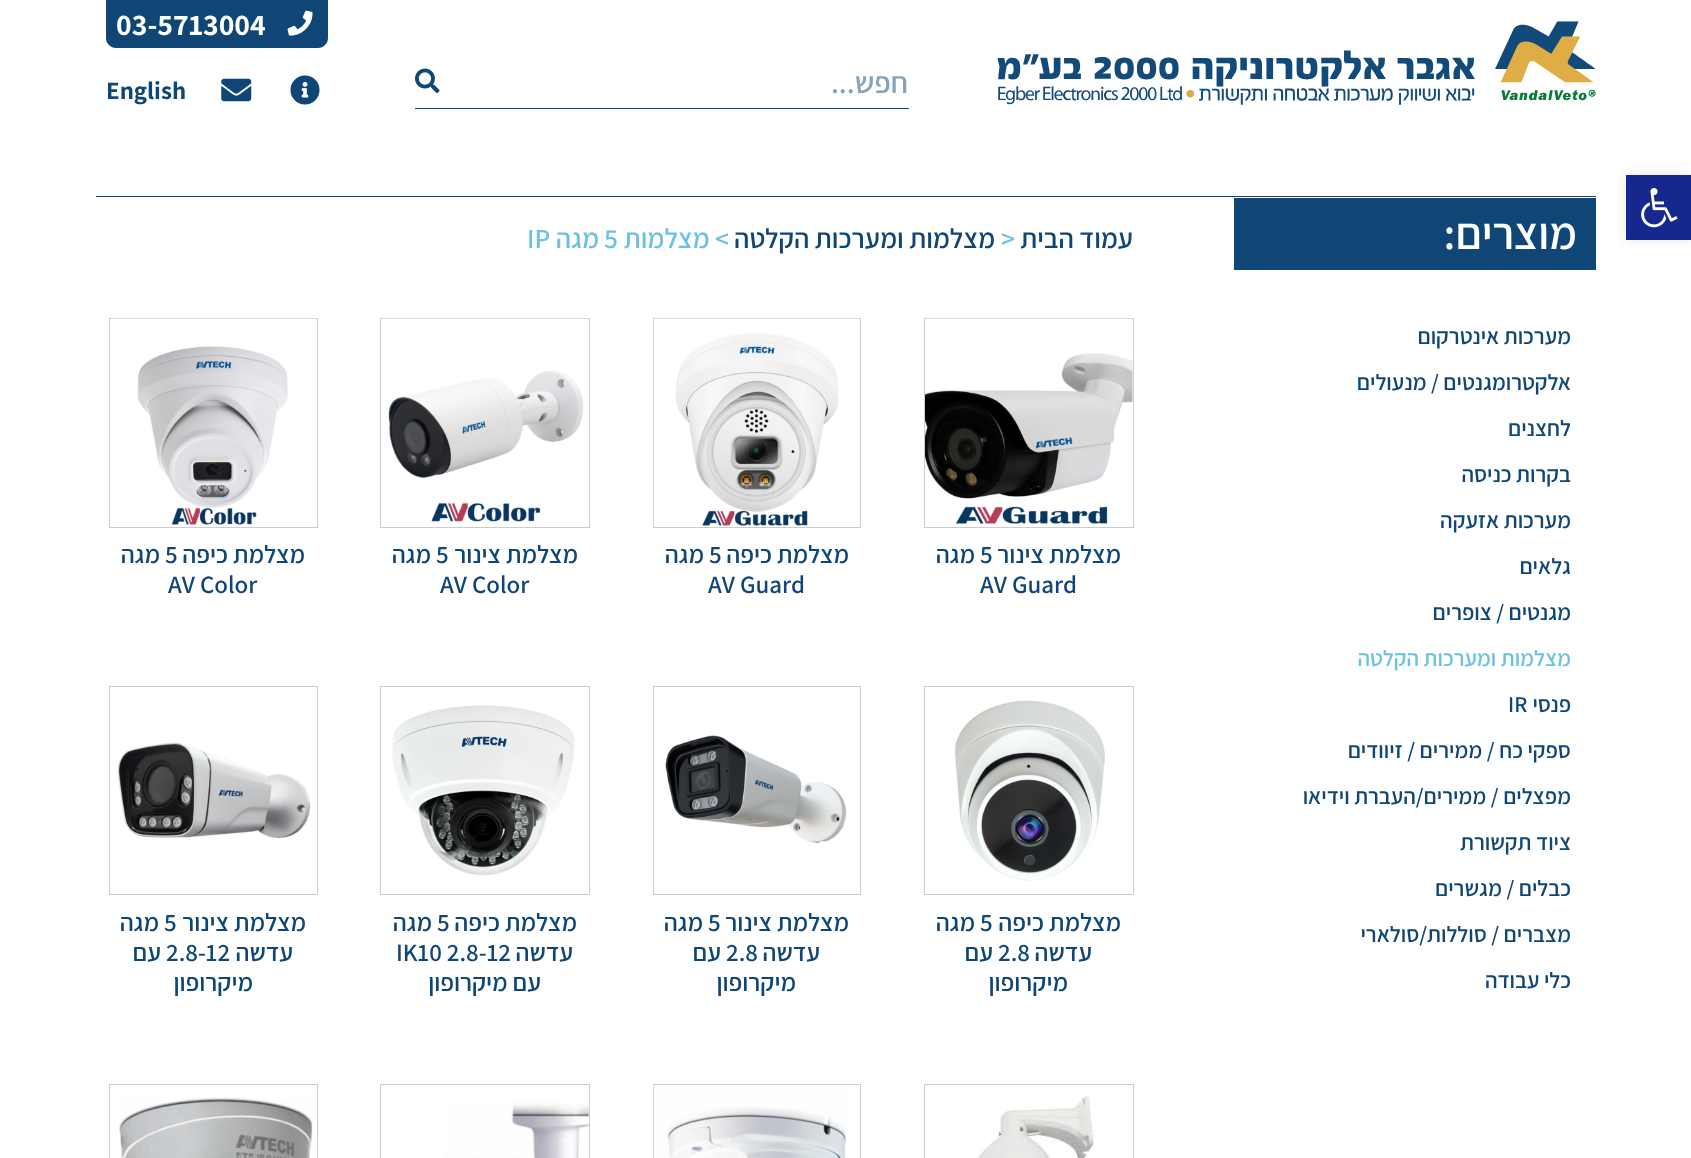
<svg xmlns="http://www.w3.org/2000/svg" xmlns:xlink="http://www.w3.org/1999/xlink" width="1691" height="1158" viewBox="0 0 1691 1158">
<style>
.cls-1{font:600 30px Assistant;direction:rtl;fill:#87a3bb}
.cls-2{font:bold 30px Assistant;fill:#ffffff}
.cls-3{font:bold 25px Assistant;fill:#0f4676}
.cls-4{font:600 45px Assistant;direction:rtl;fill:#ffffff}
.cls-5{font:600 27.5px Assistant;direction:rtl;fill:#0f4676}
.cls-6{font:600 27.5px Assistant;fill:#6ec1e4}
.cls-7{font:600 27.5px Assistant;direction:rtl;fill:#6ec1e4}
.cls-8{font:600 22.5px Assistant;direction:rtl;fill:#0f4676}
.cls-9{font:600 22.5px Assistant;direction:rtl;fill:#6ec1e4}
.cls-10{font:600 22.5px Assistant;fill:#0f4676}
.cls-11{font:600 25px Assistant;direction:rtl;fill:#0f4676}
.cls-12{font:600 25px Assistant;fill:#0f4676}
</style>
<rect width="100%" height="100%" fill="#ffffff"/>
<image xlink:href="image0.png" x="997" y="21" width="599" height="84"/>
<rect fill="#0f4676" x="415" y="108" width="494" height="1"/>
<image xlink:href="image1.png" x="415" y="68" width="25" height="25"/>
<path fill="#0f4676" d="M106 0H328V38C328 43.5 323.5 48 318 48H116C110.5 48 106 43.5 106 38Z"/>
<image xlink:href="image2.png" x="287" y="10" width="26" height="26"/>
<image xlink:href="image3.png" x="290" y="75" width="30" height="30"/>
<image xlink:href="image4.png" x="221" y="78" width="31" height="24"/>
<rect fill="#000000" fill-opacity="0.1" filter="blur(6px)" x="1626" y="175" width="65" height="65"/>
<rect fill="#16288e" x="1626" y="175" width="65" height="65"/>
<image xlink:href="image5.png" x="1641" y="188" width="37" height="40"/>
<rect fill="#0f4676" x="96" y="196" width="1500" height="1"/>
<rect fill="#0f4676" x="1234" y="198" width="362" height="72"/>
<rect fill="none" stroke="#cccccc" x="924.5" y="318.5" width="209" height="209"/>
<image xlink:href="image6.png" x="925" y="318" width="208" height="206"/>
<rect fill="none" stroke="#cccccc" x="653.5" y="318.5" width="207" height="209"/>
<image xlink:href="image7.png" x="653" y="318" width="207" height="208"/>
<rect fill="none" stroke="#cccccc" x="380.5" y="318.5" width="209" height="209"/>
<image xlink:href="image8.png" x="381" y="318" width="208" height="204"/>
<rect fill="none" stroke="#cccccc" x="109.5" y="318.5" width="208" height="209"/>
<image xlink:href="image9.png" x="110" y="318" width="206" height="207"/>
<rect fill="none" stroke="#cccccc" x="924.5" y="686.5" width="209" height="208"/>
<image xlink:href="image10.png" x="954" y="700" width="152" height="181"/>
<rect fill="none" stroke="#cccccc" x="653.5" y="686.5" width="207" height="208"/>
<image xlink:href="image11.png" x="665" y="735" width="182" height="109"/>
<rect fill="none" stroke="#cccccc" x="380.5" y="686.5" width="209" height="208"/>
<image xlink:href="image12.png" x="392" y="705" width="183" height="171"/>
<rect fill="none" stroke="#cccccc" x="109.5" y="686.5" width="208" height="208"/>
<image xlink:href="image13.png" x="117" y="742" width="194" height="96"/>
<rect fill="none" stroke="#cccccc" x="924.5" y="1084.5" width="209" height="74"/>
<image xlink:href="image14.png" x="977" y="1094" width="118" height="64"/>
<rect fill="none" stroke="#cccccc" x="653.5" y="1084.5" width="207" height="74"/>
<image xlink:href="image15.png" x="653" y="1085" width="194" height="73"/>
<rect fill="none" stroke="#cccccc" x="380.5" y="1084.5" width="209" height="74"/>
<image xlink:href="image16.png" x="444" y="1101" width="145" height="57"/>
<rect fill="none" stroke="#cccccc" x="109.5" y="1084.5" width="208" height="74"/>
<image xlink:href="image17.png" x="118" y="1097" width="195" height="61"/>
<text class="cls-1" x="908" y="93">חפש...</text>
<text class="cls-2" x="116" y="35">03-5713004</text>
<text class="cls-3" x="106" y="99">English</text>
<text class="cls-4" x="1577" y="249">מוצרים:</text>
<text class="cls-5" x="1133" y="248">עמוד הבית</text>
<text class="cls-6" x="1001" y="248">&gt;</text>
<text class="cls-5" x="995" y="248">מצלמות ומערכות הקלטה</text>
<text class="cls-7" x="729" y="248">&gt; מצלמות</text>
<text class="cls-6" x="604" y="248">5</text>
<text class="cls-7" x="599" y="248">מגה</text>
<text class="cls-6" x="527" y="248">IP</text>
<text class="cls-8" x="1571" y="344">מערכות אינטרקום</text>
<text class="cls-8" x="1571" y="390">אלקטרומגנטים / מנעולים</text>
<text class="cls-8" x="1571" y="436">לחצנים</text>
<text class="cls-8" x="1571" y="482">בקרות כניסה</text>
<text class="cls-8" x="1571" y="528">מערכות אזעקה</text>
<text class="cls-8" x="1571" y="574">גלאים</text>
<text class="cls-8" x="1571" y="620">מגנטים / צופרים</text>
<text class="cls-9" x="1571" y="666">מצלמות ומערכות הקלטה</text>
<text class="cls-8" x="1571" y="712">פנסי</text>
<text class="cls-10" x="1508" y="712">IR</text>
<text class="cls-8" x="1571" y="758">ספקי כח / ממירים / זיוודים</text>
<text class="cls-8" x="1571" y="804">מפצלים / ממירים/העברת וידיאו</text>
<text class="cls-8" x="1571" y="850">ציוד תקשורת</text>
<text class="cls-8" x="1571" y="896">כבלים / מגשרים</text>
<text class="cls-8" x="1571" y="942">מצברים / סוללות/סולארי</text>
<text class="cls-8" x="1571" y="988">כלי עבודה</text>
<text class="cls-11" x="1121" y="563">מצלמת צינור</text>
<text class="cls-12" x="980" y="563">5</text>
<text class="cls-11" x="975" y="563">מגה</text>
<text class="cls-12" x="980" y="593">AV Guard</text>
<text class="cls-11" x="849" y="563">מצלמת כיפה</text>
<text class="cls-12" x="709" y="563">5</text>
<text class="cls-11" x="704" y="563">מגה</text>
<text class="cls-12" x="708" y="593">AV Guard</text>
<text class="cls-11" x="578" y="563">מצלמת צינור</text>
<text class="cls-12" x="436" y="563">5</text>
<text class="cls-11" x="431" y="563">מגה</text>
<text class="cls-12" x="440" y="593">AV Color</text>
<text class="cls-11" x="305" y="563">מצלמת כיפה</text>
<text class="cls-12" x="165" y="563">5</text>
<text class="cls-11" x="160" y="563">מגה</text>
<text class="cls-12" x="168" y="593">AV Color</text>
<text class="cls-11" x="1121" y="931">מצלמת כיפה</text>
<text class="cls-12" x="980" y="931">5</text>
<text class="cls-11" x="975" y="931">מגה</text>
<text class="cls-11" x="1092" y="961">עדשה</text>
<text class="cls-12" x="998" y="961">2.8</text>
<text class="cls-11" x="993" y="961">עם</text>
<text class="cls-11" x="1068" y="991">מיקרופון</text>
<text class="cls-11" x="849" y="931">מצלמת צינור</text>
<text class="cls-12" x="708" y="931">5</text>
<text class="cls-11" x="703" y="931">מגה</text>
<text class="cls-11" x="820" y="961">עדשה</text>
<text class="cls-12" x="726" y="961">2.8</text>
<text class="cls-11" x="721" y="961">עם</text>
<text class="cls-11" x="796" y="991">מיקרופון</text>
<text class="cls-11" x="577" y="931">מצלמת כיפה</text>
<text class="cls-12" x="437" y="931">5</text>
<text class="cls-11" x="432" y="931">מגה</text>
<text class="cls-11" x="573" y="961">עדשה</text>
<text class="cls-12" x="396" y="961">IK10 2.8-12</text>
<text class="cls-11" x="541" y="991">עם מיקרופון</text>
<text class="cls-11" x="306" y="931">מצלמת צינור</text>
<text class="cls-12" x="164" y="931">5</text>
<text class="cls-11" x="159" y="931">מגה</text>
<text class="cls-11" x="293" y="961">עדשה</text>
<text class="cls-12" x="166" y="961">2.8-12</text>
<text class="cls-11" x="161" y="961">עם</text>
<text class="cls-11" x="253" y="991">מיקרופון</text>
</svg>
